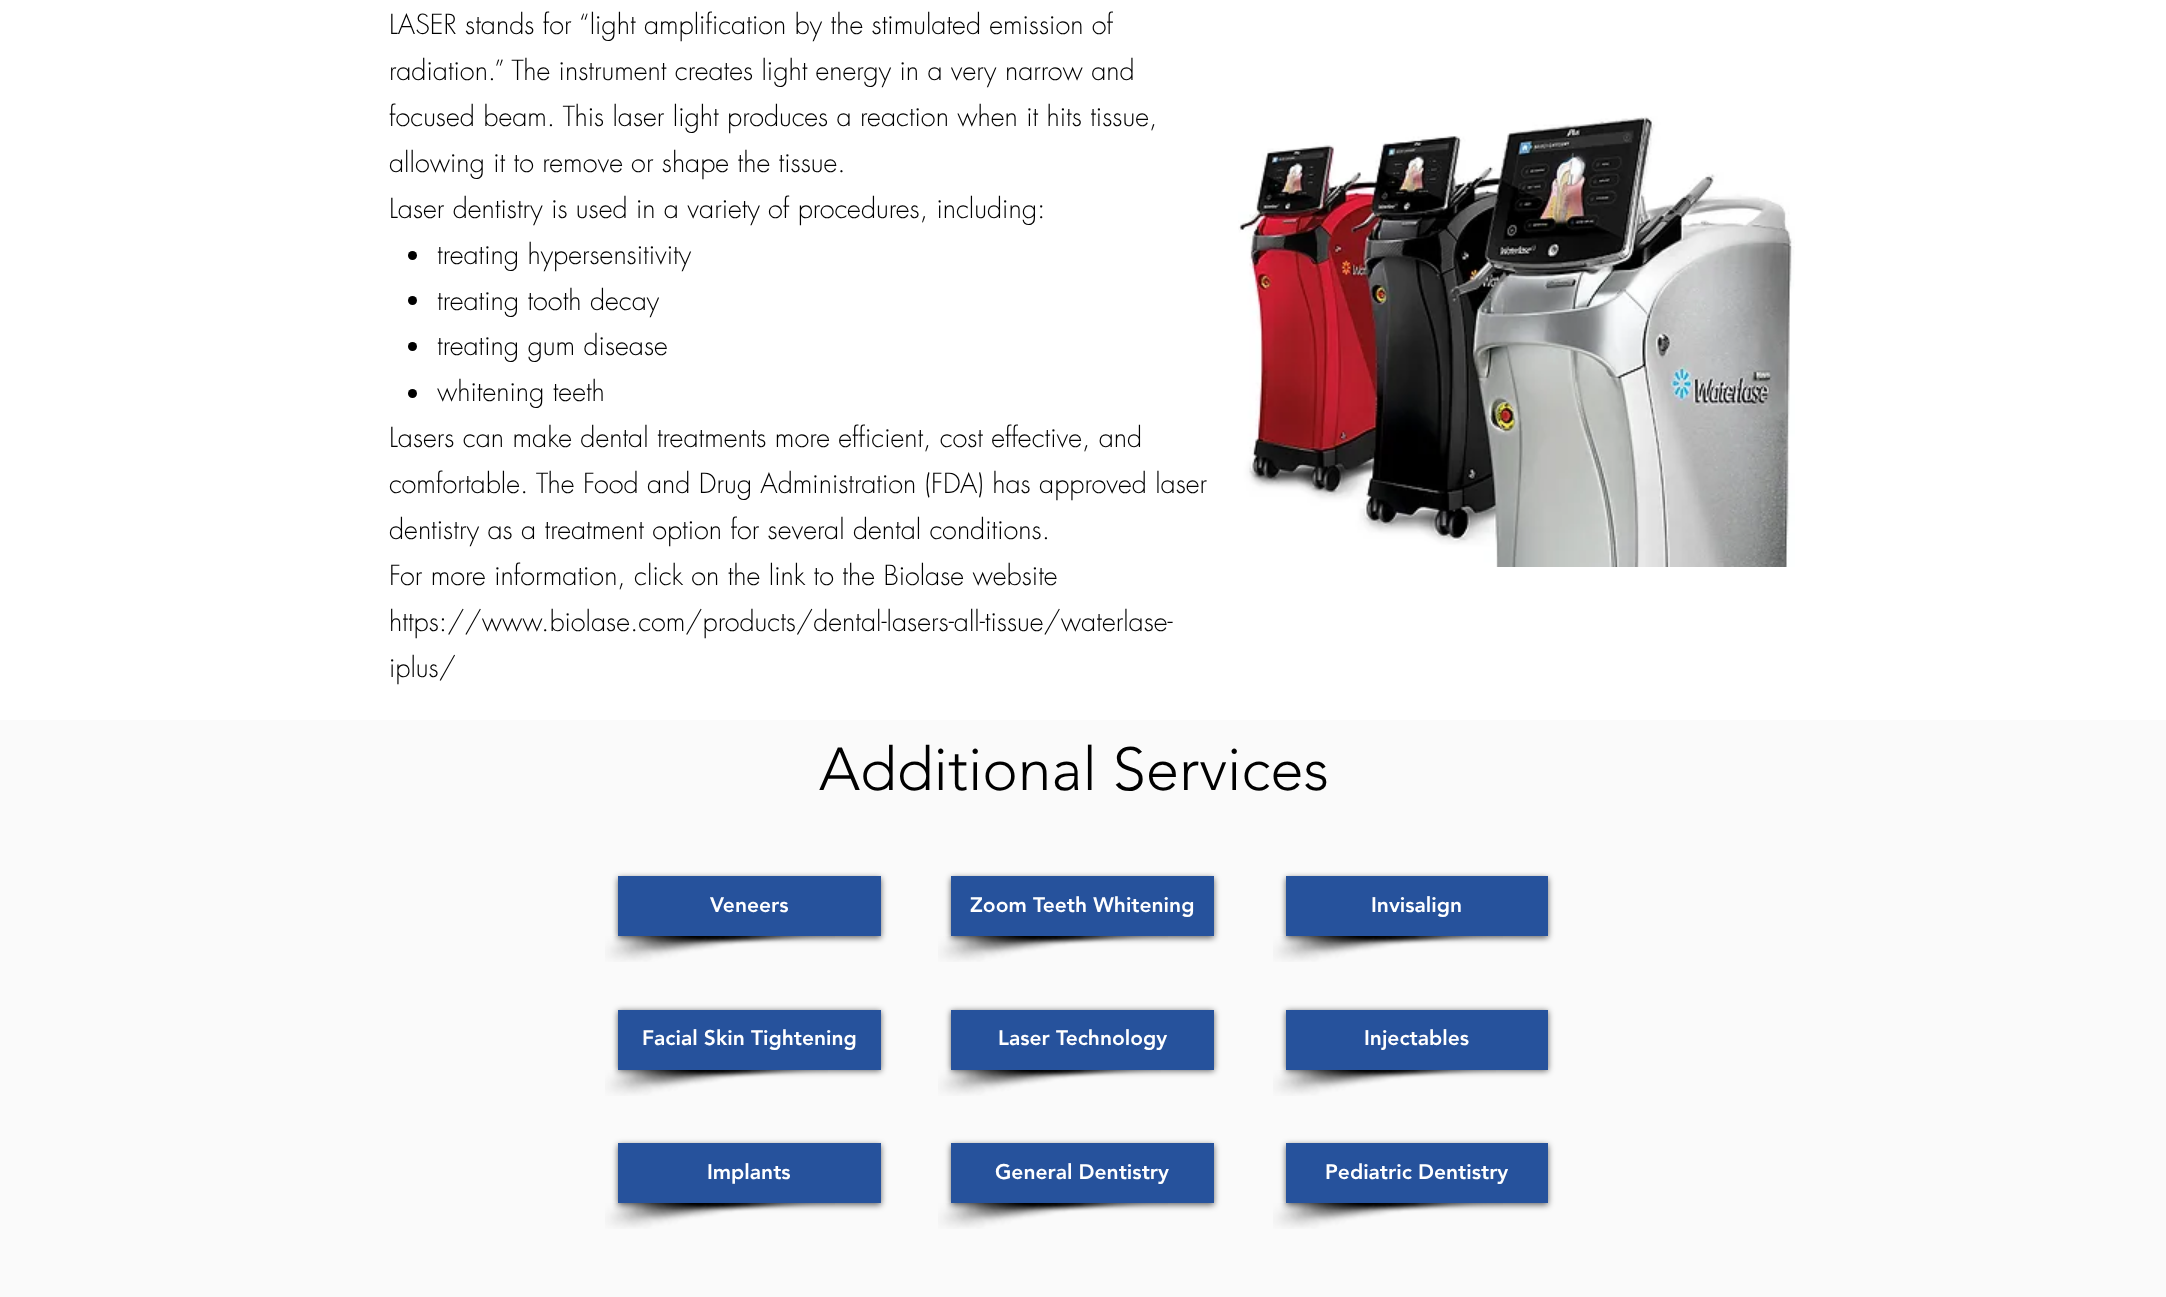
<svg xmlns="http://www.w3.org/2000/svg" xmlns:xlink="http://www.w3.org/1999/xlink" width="2166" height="1297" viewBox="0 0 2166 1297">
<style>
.cls-1{font:300 27px futura;fill:#000000}
.cls-2{font:300 60px 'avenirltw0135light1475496';fill:#000000}
.cls-3{font:900 21px 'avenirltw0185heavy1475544';fill:#ffffff}
</style>
<rect width="100%" height="100%" fill="#ffffff"/>
<circle fill="#000000" cx="412.5" cy="255.5" r="4.5"/>
<circle fill="#000000" cx="412.5" cy="300.5" r="4.5"/>
<circle fill="#000000" cx="412.5" cy="346.5" r="4.5"/>
<circle fill="#000000" cx="412.5" cy="393.5" r="4.5"/>
<image xlink:href="image0.png" x="1238" y="116" width="557" height="451"/>
<rect fill="#fafafa" x="0" y="720" width="2166" height="577"/>
<image xlink:href="image1.png" x="605" y="936" width="230" height="26"/>
<rect fill="#000000" fill-opacity="0.6" filter="blur(3px)" x="618" y="878" width="263" height="60"/>
<rect fill="#26529c" x="618" y="876" width="263" height="60"/>
<image xlink:href="image2.png" x="938" y="936" width="230" height="26"/>
<rect fill="#000000" fill-opacity="0.6" filter="blur(3px)" x="951" y="878" width="263" height="60"/>
<rect fill="#26529c" x="951" y="876" width="263" height="60"/>
<image xlink:href="image3.png" x="1273" y="936" width="230" height="26"/>
<rect fill="#000000" fill-opacity="0.6" filter="blur(3px)" x="1286" y="878" width="262" height="60"/>
<rect fill="#26529c" x="1286" y="876" width="262" height="60"/>
<image xlink:href="image4.png" x="605" y="1070" width="223" height="26"/>
<rect fill="#000000" fill-opacity="0.6" filter="blur(3px)" x="618" y="1011" width="263" height="60"/>
<rect fill="#26529c" x="618" y="1010" width="263" height="60"/>
<image xlink:href="image5.png" x="938" y="1070" width="223" height="26"/>
<rect fill="#000000" fill-opacity="0.6" filter="blur(3px)" x="951" y="1011" width="263" height="60"/>
<rect fill="#26529c" x="951" y="1010" width="263" height="60"/>
<image xlink:href="image6.png" x="1273" y="1070" width="223" height="26"/>
<rect fill="#000000" fill-opacity="0.6" filter="blur(3px)" x="1286" y="1011" width="262" height="60"/>
<rect fill="#26529c" x="1286" y="1010" width="262" height="60"/>
<image xlink:href="image1.png" x="605" y="1203" width="230" height="26"/>
<rect fill="#000000" fill-opacity="0.6" filter="blur(3px)" x="618" y="1145" width="263" height="60"/>
<rect fill="#26529c" x="618" y="1143" width="263" height="60"/>
<image xlink:href="image2.png" x="938" y="1203" width="230" height="26"/>
<rect fill="#000000" fill-opacity="0.6" filter="blur(3px)" x="951" y="1145" width="263" height="60"/>
<rect fill="#26529c" x="951" y="1143" width="263" height="60"/>
<image xlink:href="image3.png" x="1273" y="1203" width="230" height="26"/>
<rect fill="#000000" fill-opacity="0.6" filter="blur(3px)" x="1286" y="1145" width="262" height="60"/>
<rect fill="#26529c" x="1286" y="1143" width="262" height="60"/>
<text class="cls-1"><tspan x="389" y="34">LASER stands for “light amplification by the stimulated emission of</tspan><tspan x="389" y="80">radiation.” The instrument creates light energy in a very narrow and</tspan><tspan x="389" y="126">focused beam. This laser light produces a reaction when it hits tissue,</tspan><tspan x="389" y="172">allowing it to remove or shape the tissue.</tspan><tspan x="389" y="218">Laser dentistry is used in a variety of procedures, including:</tspan></text>
<text class="cls-1"><tspan x="437" y="264">treating hypersensitivity</tspan><tspan x="437" y="310">treating tooth decay</tspan><tspan x="437" y="355">treating gum disease</tspan><tspan x="437" y="401">whitening teeth</tspan></text>
<text class="cls-1"><tspan x="389" y="447">Lasers can make dental treatments more efficient, cost effective, and</tspan><tspan x="389" y="493">comfortable. The Food and Drug Administration (FDA) has approved laser</tspan><tspan x="389" y="539">dentistry as a treatment option for several dental conditions.</tspan><tspan x="389" y="585">For more information, click on the link to the Biolase website</tspan><tspan x="389" y="631">https://www.biolase.com/products/dental-lasers-all-tissue/waterlase-</tspan><tspan x="389" y="677">iplus/</tspan></text>
<text class="cls-2" x="819" y="790">Additional Services</text>
<text class="cls-3" x="710" y="912">Veneers</text>
<text class="cls-3" x="970" y="912">Zoom Teeth Whitening</text>
<text class="cls-3" x="1371" y="912">Invisalign</text>
<text class="cls-3" x="642" y="1045">Facial Skin Tightening</text>
<text class="cls-3" x="998" y="1045">Laser Technology</text>
<text class="cls-3" x="1364" y="1045">Injectables</text>
<text class="cls-3" x="707" y="1179">Implants</text>
<text class="cls-3" x="995" y="1179">General Dentistry</text>
<text class="cls-3" x="1325" y="1179">Pediatric Dentistry</text>
</svg>
